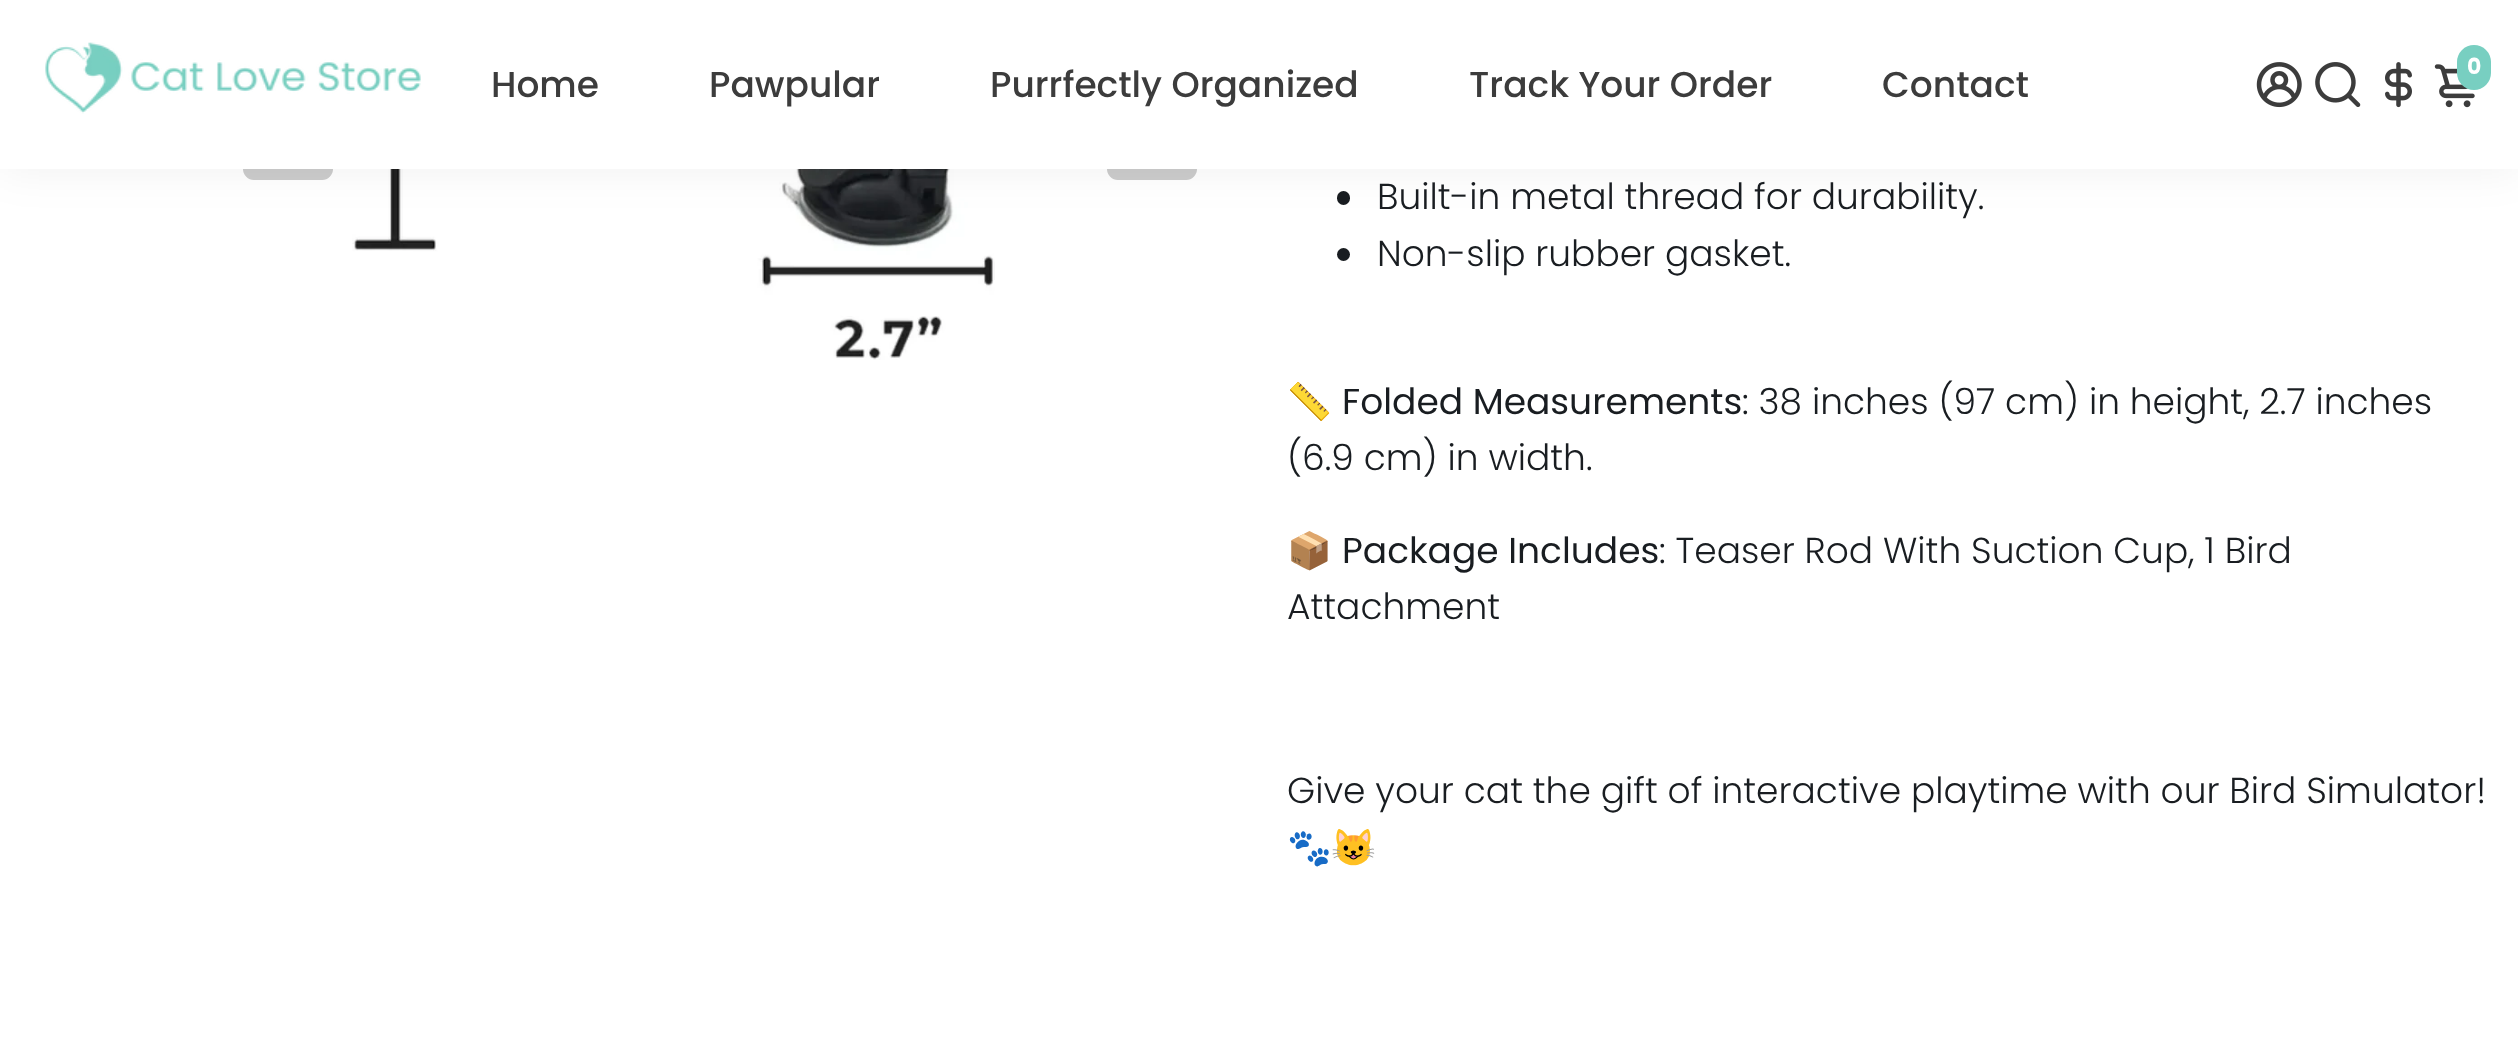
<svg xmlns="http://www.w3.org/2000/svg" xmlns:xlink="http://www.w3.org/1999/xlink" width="2518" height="1057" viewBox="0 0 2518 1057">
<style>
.cls-1{font:bold 22px Poppins;fill:#ffffff}
.cls-2{font:500 36px Poppins;fill:#3c3c3c}
.cls-3{font:300 36px Poppins;fill:#191d21}
.cls-4{font:36px Noto Color Emoji;fill:#191d21}
.cls-5{font:36px Poppins;fill:#191d21}
</style>
<rect width="100%" height="100%" fill="#ffffff"/>
<rect fill="#cccccc" x="243" y="90" width="90" height="90" rx="11"/>
<rect fill="#cccccc" x="1107" y="90" width="90" height="90" rx="11"/>
<image xlink:href="image5.png" x="352" y="169" width="643" height="191"/>
<rect fill="#191d21" x="1337" y="191" width="13" height="14" rx="6.5"/>
<rect fill="#000000" fill-opacity="0.06" filter="blur(22.5px)" x="0" y="0" width="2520" height="169"/>
<rect fill="#ffffff" x="0" y="0" width="2518" height="169"/>
<image xlink:href="image0.png" x="45" y="42" width="376" height="72"/>
<image xlink:href="image1.png" x="2256" y="62" width="46" height="46"/>
<image xlink:href="image2.png" x="2315" y="62" width="46" height="45"/>
<image xlink:href="image3.png" x="2385" y="62" width="27" height="46"/>
<image xlink:href="image4.png" x="2434" y="64" width="41" height="44"/>
<rect fill="#78cfc1" x="2457" y="45" width="34" height="45" rx="17"/>
<circle fill="#191d21" cx="1343.5" cy="254.5" r="6.5"/>
<text class="cls-1" x="2467" y="74">0</text>
<text class="cls-2" x="491" y="97">Home</text>
<text class="cls-2" x="709" y="97">Pawpular</text>
<text class="cls-2" x="990" y="97">Purrfectly Organized</text>
<text class="cls-2" x="1469" y="97">Track Your Order</text>
<text class="cls-2" x="1882" y="97">Contact</text>
<text class="cls-3"><tspan x="1377" y="209">Built-in metal thread for durability.</tspan><tspan x="1377" y="266">Non-slip rubber gasket.</tspan></text>
<text class="cls-4" x="1287" y="414">📏</text>
<text class="cls-5" x="1342" y="414">Folded Measurements</text>
<text class="cls-3" x="1742" y="414">: 38 inches (97 cm) in height, 2.7 inches</text>
<text class="cls-3" x="1287" y="470">(6.9 cm) in width.</text>
<text class="cls-4" x="1287" y="563">📦</text>
<text class="cls-5" x="1342" y="563">Package Includes</text>
<text class="cls-3" x="1659" y="563">: Teaser Rod With Suction Cup, 1 Bird</text>
<text class="cls-3" x="1287" y="619">Attachment</text>
<text class="cls-3" x="1287" y="803">Give your cat the gift of interactive playtime with our Bird Simulator!</text>
<text class="cls-4" x="1287" y="860">🐾😺</text>
</svg>
